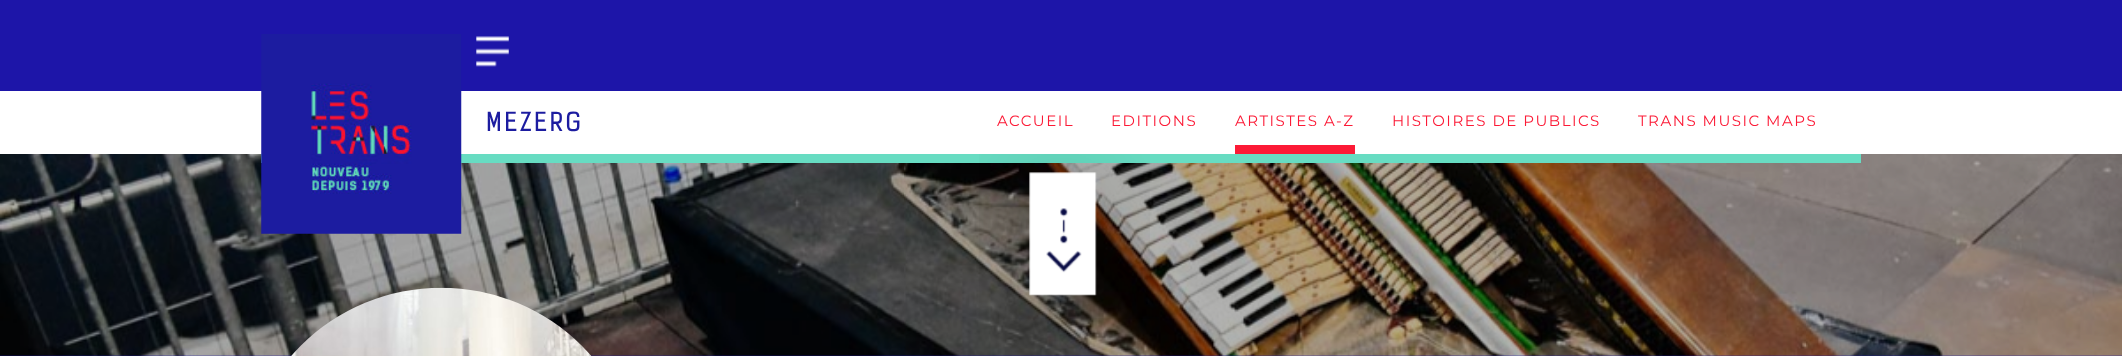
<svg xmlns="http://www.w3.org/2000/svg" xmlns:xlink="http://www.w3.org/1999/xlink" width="2122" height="356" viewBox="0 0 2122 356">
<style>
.cls-1{font:25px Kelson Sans;letter-spacing:2.5px;fill:#1c1ca0}
.cls-2{font:15px Montserrat;letter-spacing:1.5px;fill:#fc1a36}
</style>
<rect width="100%" height="100%" fill="#1d15a8"/>
<rect fill="#ffffff" x="0" y="91" width="2122" height="63"/>
<image xlink:href="image2.png" x="0" y="154" width="2122" height="202"/>
<rect fill="#67dcc2" x="261" y="154" width="1600" height="9"/>
<image xlink:href="image0.png" x="261" y="34" width="201" height="200"/>
<image xlink:href="image1.png" x="476" y="36" width="33" height="31"/>
<rect fill="#fc1a36" x="1235" y="145" width="120" height="9"/>
<image xlink:href="image3.png" x="291" y="287" width="301" height="69"/>
<image xlink:href="image4.png" x="979" y="154" width="171" height="165"/>
<text class="cls-1" x="486" y="131">MEZERG</text>
<text class="cls-2" x="997" y="126">ACCUEIL</text>
<text class="cls-2" x="1111" y="126">EDITIONS</text>
<text class="cls-2" x="1235" y="126">ARTISTES A-Z</text>
<text class="cls-2" x="1392" y="126">HISTOIRES DE PUBLICS</text>
<text class="cls-2" x="1638" y="126">TRANS MUSIC MAPS</text>
</svg>
